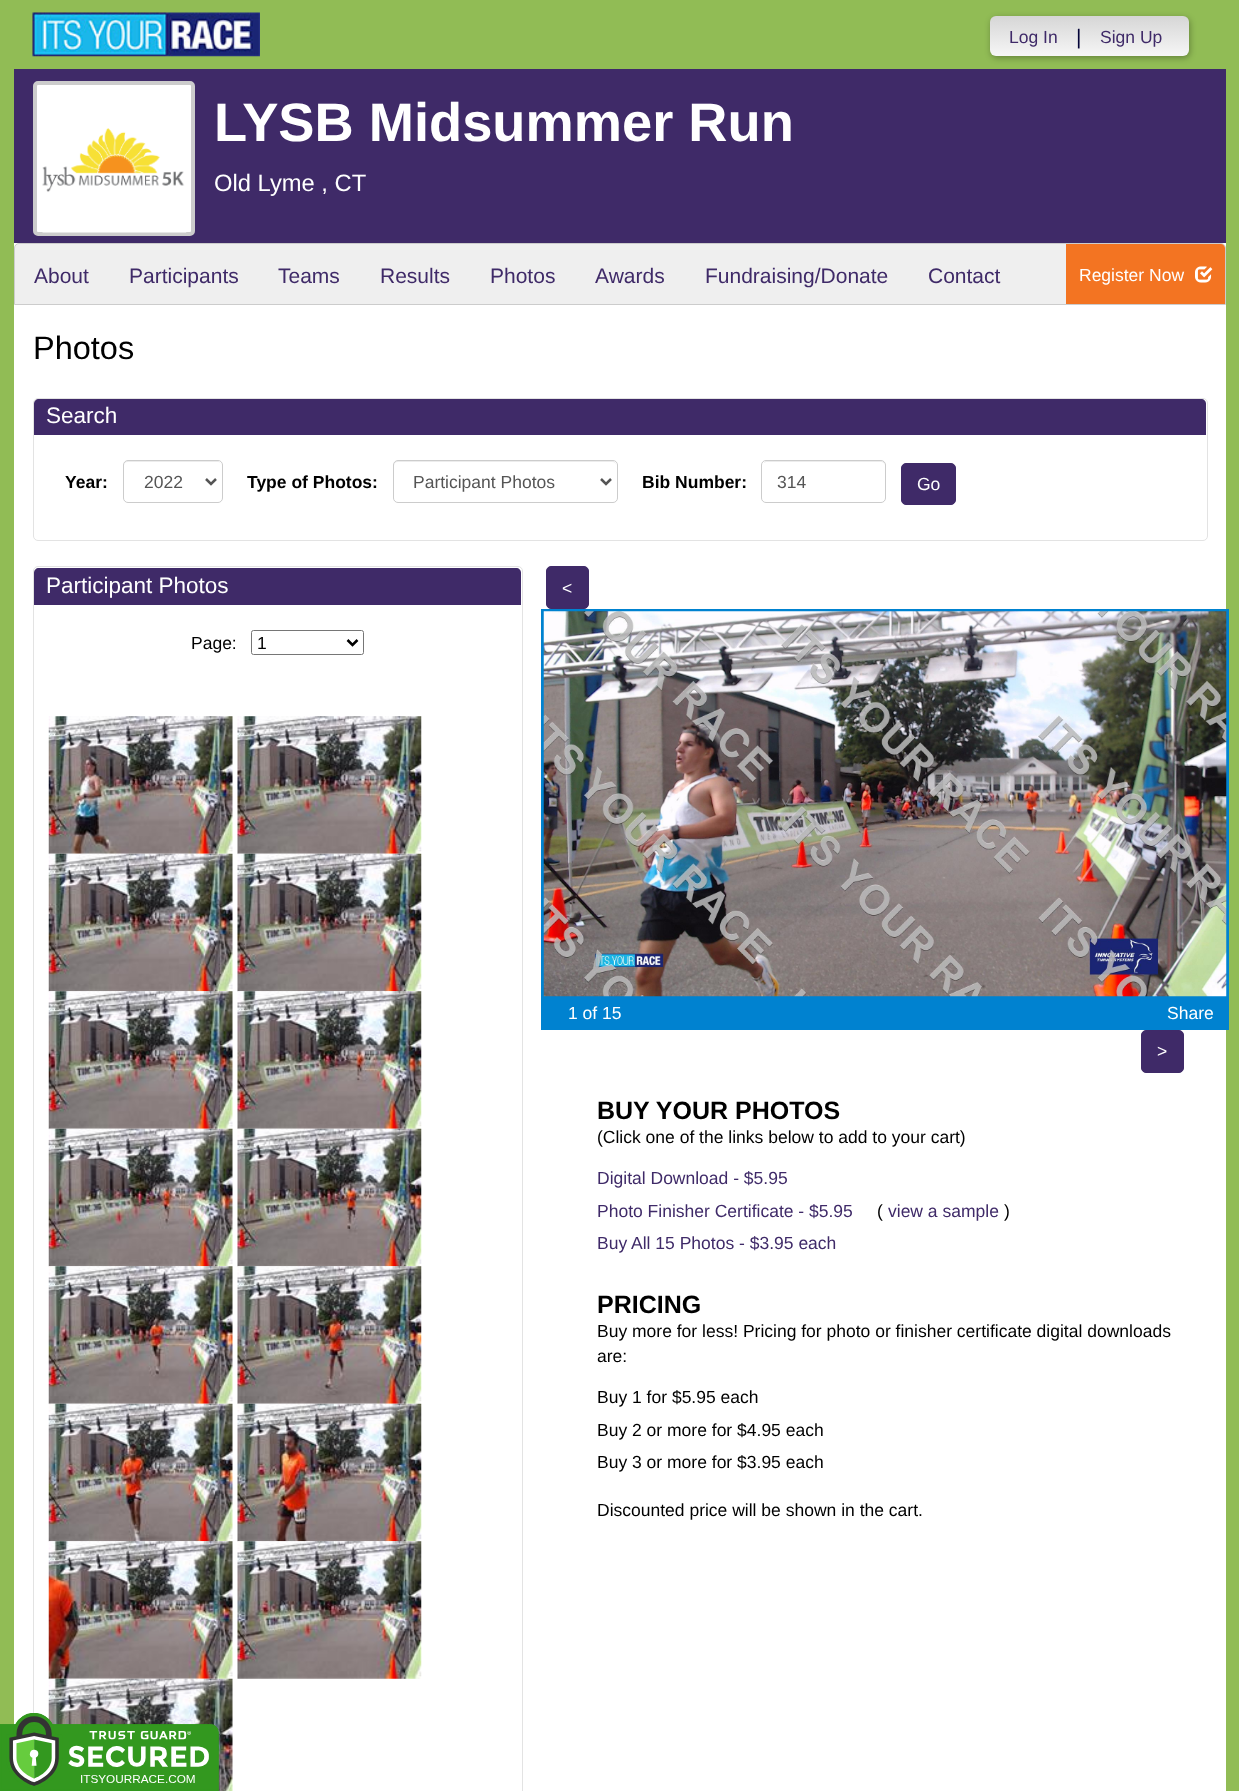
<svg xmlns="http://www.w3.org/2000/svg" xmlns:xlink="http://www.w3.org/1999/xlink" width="1239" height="1791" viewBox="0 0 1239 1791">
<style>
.cls-1{font:17.5px Liberation Sans;fill:#3f2a68}
.cls-2{font:21px Liberation Sans;fill:#040438}
.cls-3{font:bold 54.25px Liberation Sans;fill:#ffffff}
.cls-4{font:23.75px Liberation Sans;fill:#ffffff}
.cls-5{font:21px Liberation Sans;fill:#3f2a68}
.cls-6{font:17.5px Liberation Sans;fill:#ffffff}
.cls-7{font:32.5px Liberation Sans;fill:#000000}
.cls-8{font:22.5px Liberation Sans;fill:#ffffff}
.cls-9{font:bold 17.5px Liberation Sans;fill:#000000}
.cls-10{font:17.5px Liberation Sans;fill:#555555}
.cls-11{font:17.5px Liberation Sans;fill:#000000}
.cls-12{font:bold 25px Liberation Sans;fill:#000000}
</style>
<defs>
<linearGradient id="g1" gradientUnits="userSpaceOnUse" x1="1089" y1="16" x2="1089" y2="56"><stop offset="0" stop-color="#d6d6d6"/><stop offset="1" stop-color="#f6f6f6"/></linearGradient>
</defs>
<rect width="100%" height="100%" fill="#91bc55"/>
<image xlink:href="image0.png" x="32" y="12" width="228" height="45"/>
<rect fill="#000000" fill-opacity="0.3" filter="blur(3px)" x="991" y="18" width="199" height="40" rx="6"/>
<rect fill="url(#g1)" x="990" y="16" width="199" height="40" rx="6"/>
<rect fill="#3f2a68" x="14" y="69" width="1212" height="174"/>
<rect fill="#ffffff" stroke="#cccccc" stroke-width="4" x="35" y="83" width="158" height="151" rx="3"/>
<image xlink:href="image1.png" x="42" y="128" width="145" height="105"/>
<rect fill="#ffffff" x="14" y="243" width="1212" height="1548"/>
<path fill="#efefef" stroke="#cccccc" d="M19 243.5H1221C1223.5 243.5 1225.5 245.5 1225.5 248V304.5H14.5V248C14.5 245.5 16.5 243.5 19 243.5Z"/>
<path fill="#f37422" d="M1066 244H1221C1223 244 1225 246 1225 248V304H1066Z"/>
<image xlink:href="image2.png" x="1195" y="266" width="18" height="17"/>
<path fill="#f2f2f2" d="M38 400H1202C1205 400 1206 402 1206 404C1206 401 1205 399 1202 399H38C35 399 34 401 34 404C34 402 35 400 38 400Z"/>
<rect fill="none" stroke="#e3e3e3" x="33.5" y="398.5" width="1174" height="142" rx="4.5"/>
<path fill="#3f2a68" d="M39 399H1201C1204 399 1206 401 1206 404V435H34V404C34 401 36 399 39 399Z"/>
<path fill="#ececec" d="M128 462H218C220 462 221 464 221 466C221 457 207 461 202 461H143C138 461 124 457 124 466C124 464 125 462 128 462Z"/>
<rect fill="none" stroke="#cccccc" x="123.5" y="460.5" width="99" height="42" rx="4.5"/>
<path fill="none" stroke="#555555" stroke-width="2.5" d="M206 479L211 484L216 479"/>
<path fill="#ececec" d="M398 462H612C615 462 616 464 616 466C616 463 615 461 612 461H398C395 461 394 463 394 466C394 464 395 462 398 462Z"/>
<rect fill="none" stroke="#cccccc" x="393.5" y="460.5" width="224" height="42" rx="4.5"/>
<path fill="none" stroke="#555555" stroke-width="2.5" d="M601 479L606 484L611 479"/>
<path fill="#ececec" d="M766 462H881C883 462 885 464 885 466L884 462L881 461H766C765 461 764 462 764 463Z"/>
<rect fill="none" stroke="#cccccc" x="761.5" y="460.5" width="124" height="42" rx="4.5"/>
<rect fill="#3f2a68" stroke="#3f2a68" x="901.5" y="463.5" width="54" height="41" rx="4.5"/>
<path fill="#f2f2f2" d="M38 569H518L520 570C520 569 518 568 517 568H38C36 568 35 569 34 570C35 569 36 569 38 569Z"/>
<rect fill="none" stroke="#e3e3e3" x="33.5" y="566.5" width="489" height="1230" rx="4.5"/>
<path fill="#3f2a68" d="M39 568H516C519 568 521 570 521 573V605H34V573C34 570 36 568 39 568Z"/>
<rect fill="none" stroke="#767676" x="251.5" y="630.5" width="112" height="24" rx="2"/>
<path fill="none" stroke="#000000" stroke-width="2.5" d="M347.5 640L352.5 645L357.5 640"/>
<image xlink:href="image3.png" x="48" y="716" width="185" height="138"/>
<image xlink:href="image4.png" x="237" y="716" width="185" height="138"/>
<image xlink:href="image5.png" x="48" y="853" width="185" height="139"/>
<image xlink:href="image6.png" x="237" y="853" width="185" height="139"/>
<image xlink:href="image7.png" x="48" y="991" width="185" height="138"/>
<image xlink:href="image8.png" x="237" y="991" width="185" height="138"/>
<image xlink:href="image9.png" x="48" y="1128" width="185" height="139"/>
<image xlink:href="image10.png" x="237" y="1128" width="185" height="139"/>
<image xlink:href="image11.png" x="48" y="1266" width="185" height="138"/>
<image xlink:href="image12.png" x="237" y="1266" width="185" height="138"/>
<image xlink:href="image13.png" x="48" y="1403" width="185" height="139"/>
<image xlink:href="image14.png" x="237" y="1403" width="185" height="139"/>
<image xlink:href="image15.png" x="48" y="1541" width="185" height="138"/>
<image xlink:href="image16.png" x="237" y="1541" width="185" height="138"/>
<image xlink:href="image17.png" x="48" y="1678" width="185" height="113"/>
<rect fill="#3f2a68" stroke="#3f2a68" x="546.5" y="566.5" width="42" height="42" rx="4.5"/>
<rect fill="none" stroke="#0082d0" stroke-width="3" x="542.5" y="610.5" width="685" height="387"/>
<image xlink:href="image18.png" x="543" y="611" width="684" height="386"/>
<rect fill="#0082d0" x="541" y="999" width="688" height="31"/>
<rect fill="#3f2a68" stroke="#3f2a68" x="1141.5" y="1030.5" width="42" height="42" rx="4.5"/>
<image xlink:href="image19.png" x="0" y="1713" width="219" height="78"/>
<text class="cls-1" x="1009" y="43">Log In</text>
<text class="cls-2" x="1076" y="44">|</text>
<text class="cls-1" x="1100" y="43">Sign Up</text>
<text class="cls-3" x="214" y="141">LYSB Midsummer Run</text>
<text class="cls-4" x="214" y="191">Old Lyme , CT</text>
<text class="cls-5" x="34" y="283">About</text>
<text class="cls-5" x="129" y="283">Participants</text>
<text class="cls-5" x="278" y="283">Teams</text>
<text class="cls-5" x="380" y="283">Results</text>
<text class="cls-5" x="490" y="283">Photos</text>
<text class="cls-5" x="595" y="283">Awards</text>
<text class="cls-5" x="705" y="283">Fundraising/Donate</text>
<text class="cls-5" x="928" y="283">Contact</text>
<text class="cls-6" x="1079" y="281">Register Now</text>
<text class="cls-7" x="33" y="359">Photos</text>
<text class="cls-8" x="46" y="423">Search</text>
<text class="cls-9" x="65" y="488">Year:</text>
<text class="cls-10" x="144" y="488">2022</text>
<text class="cls-9" x="247" y="488">Type of Photos:</text>
<text class="cls-10" x="413" y="488">Participant Photos</text>
<text class="cls-9" x="642" y="488">Bib Number:</text>
<text class="cls-10" x="777" y="488">314</text>
<text class="cls-6" x="917" y="490">Go</text>
<text class="cls-8" x="46" y="593">Participant Photos</text>
<text class="cls-11" x="191" y="649">Page:</text>
<text class="cls-11" x="257" y="649">1</text>
<text class="cls-6" x="562" y="594">&lt;</text>
<text class="cls-6" x="568" y="1019">1 of 15</text>
<text class="cls-6" x="1167" y="1019">Share</text>
<text class="cls-6" x="1157" y="1057">&gt;</text>
<text class="cls-12" x="597" y="1119">BUY YOUR PHOTOS</text>
<text class="cls-11" x="597" y="1143">(Click one of the links below to add to your cart)</text>
<text class="cls-1"><tspan x="597" y="1184">Digital Download - $5.95</tspan><tspan x="597" y="1217">Photo Finisher Certificate - $5.95</tspan></text>
<text class="cls-11" x="877" y="1217">(</text>
<text class="cls-1" x="888" y="1217">view a sample</text>
<text class="cls-11" x="1004" y="1217">)</text>
<text class="cls-1" x="597" y="1249">Buy All 15 Photos - $3.95 each</text>
<text class="cls-12" x="597" y="1313">PRICING</text>
<text class="cls-11"><tspan x="597" y="1337">Buy more for less! Pricing for photo or finisher certificate digital downloads</tspan><tspan x="597" y="1362">are:</tspan></text>
<text class="cls-11"><tspan x="597" y="1403">Buy 1 for $5.95 each</tspan><tspan x="597" y="1436">Buy 2 or more for $4.95 each</tspan><tspan x="597" y="1468">Buy 3 or more for $3.95 each</tspan></text>
<text class="cls-11" x="597" y="1516">Discounted price will be shown in the cart.</text>
</svg>
